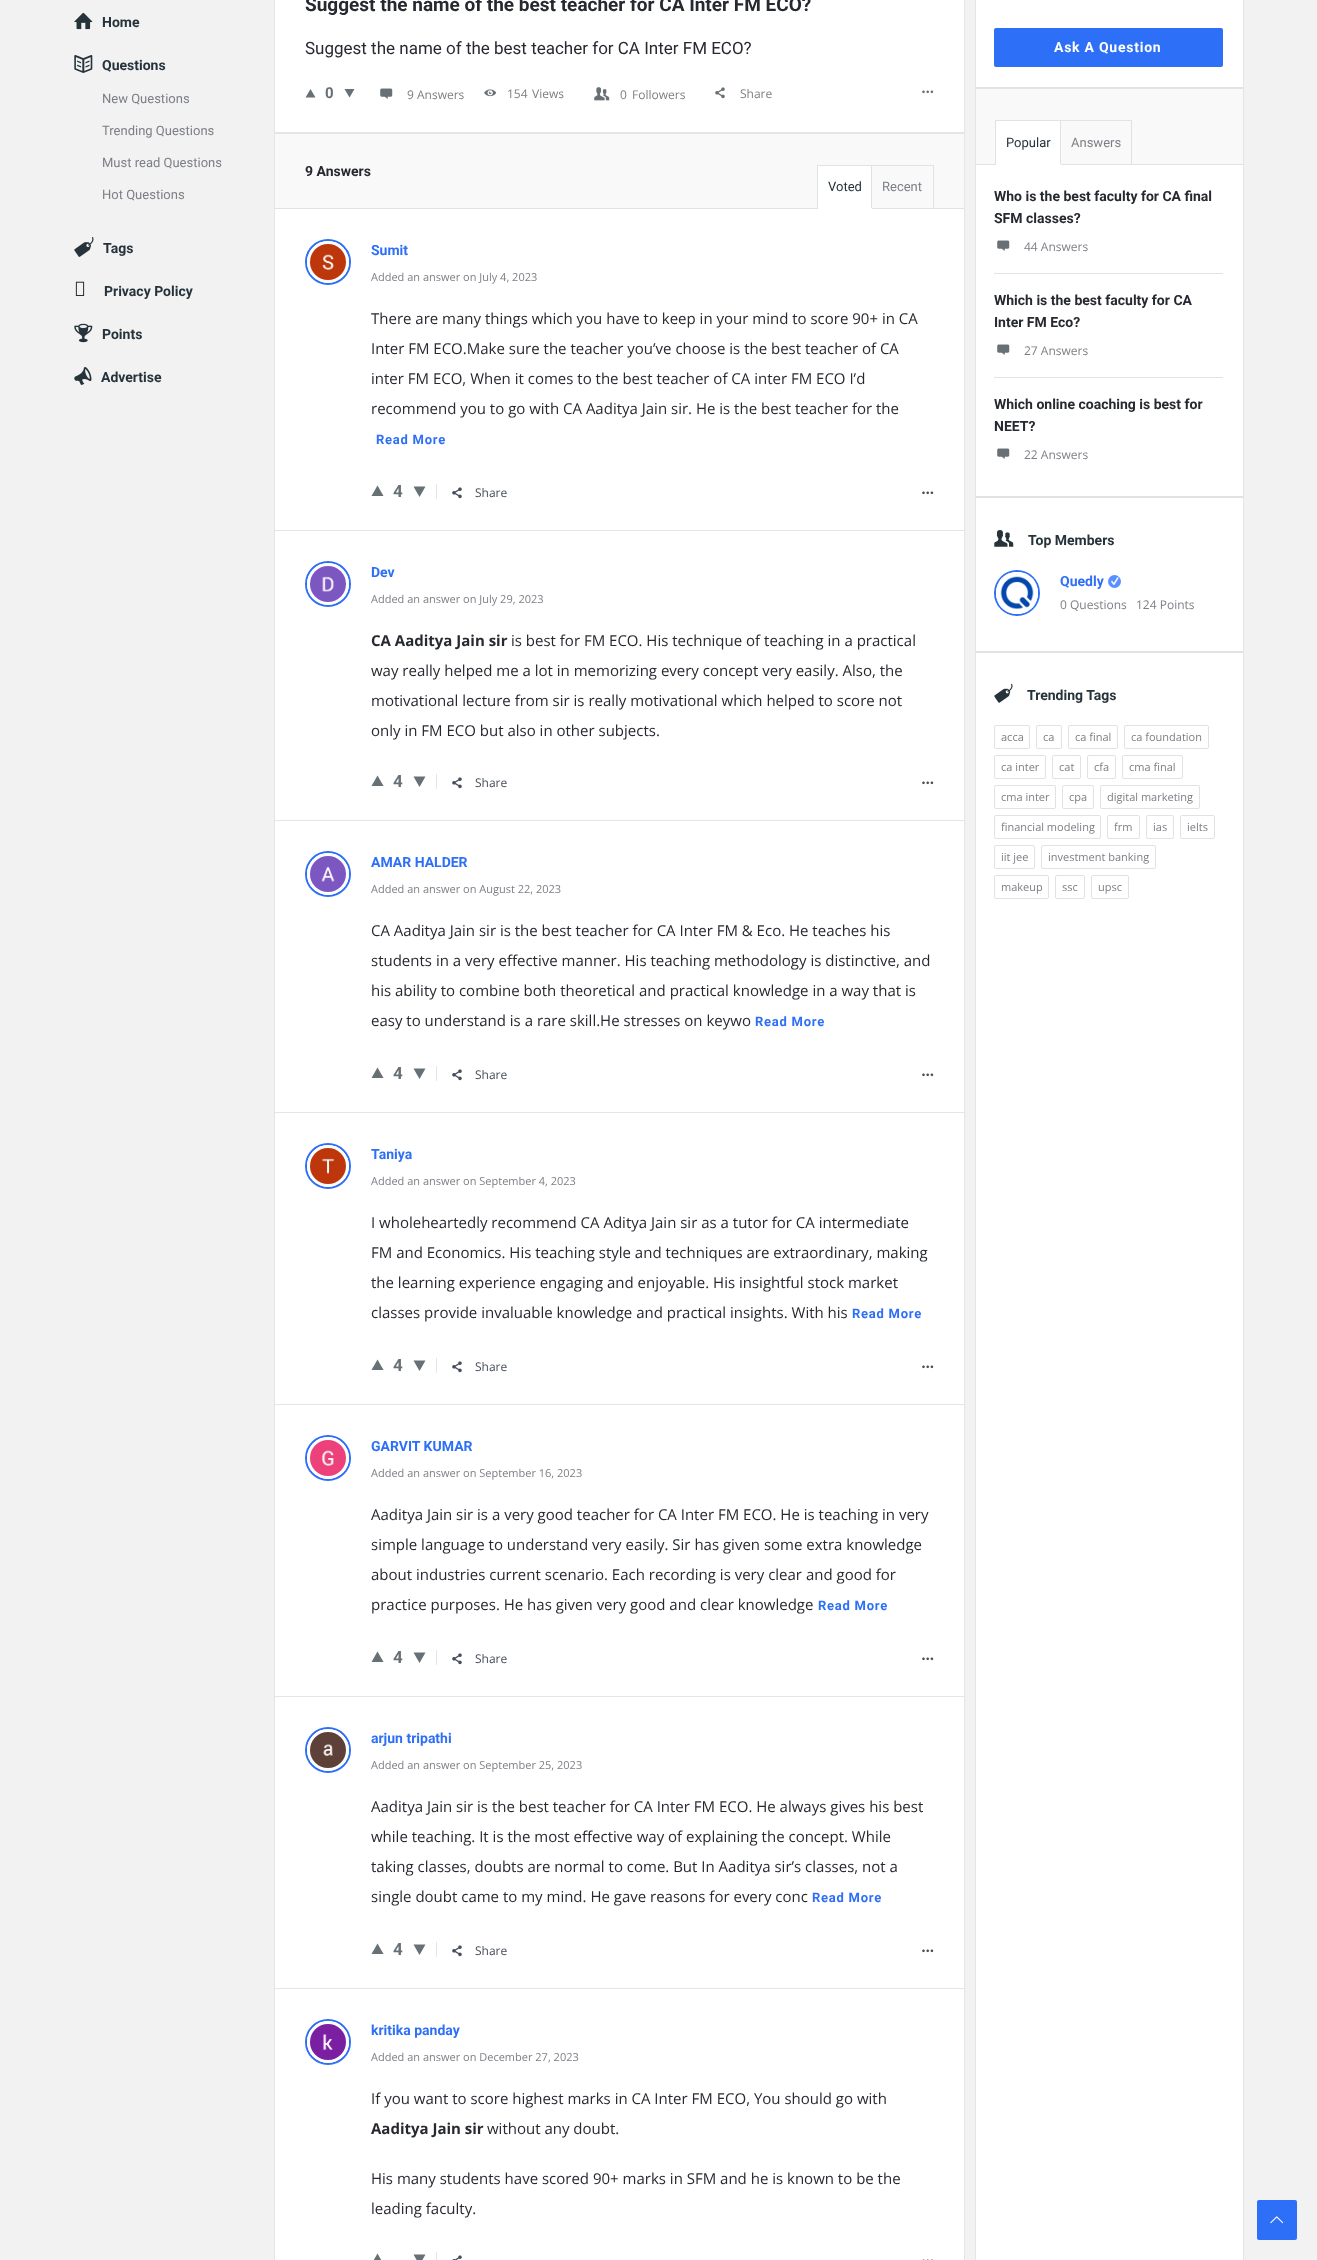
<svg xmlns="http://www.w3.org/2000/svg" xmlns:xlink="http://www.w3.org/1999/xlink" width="1317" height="2260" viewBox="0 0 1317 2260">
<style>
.cls-1{font:bold 14px Roboto;fill:#26333b}
.cls-2{font:13px Roboto;fill:#7c7f85}
.cls-3{font:bold 19px Roboto;fill:#272930}
.cls-4{font:17px Roboto;fill:#272930}
.cls-5{font:bold 15px Roboto;fill:#677075}
.cls-6{font:12px Open Sans;fill:#7c7f85}
.cls-7{font:bold 14px Roboto;fill:#272930}
.cls-8{font:13px Roboto;fill:#26333b}
.cls-9{font:bold 14px Roboto;fill:#2d6ff7}
.cls-10{font:11px Open Sans;fill:#7c7f85}
.cls-11{font:15px Open Sans;fill:#272930}
.cls-12{font:bold 13px Roboto;letter-spacing:0.75px;fill:#2d6ff7}
.cls-13{font:bold 17px Roboto;fill:#677075}
.cls-14{font:12px Open Sans;fill:#464e5b}
.cls-15{font:bold 15px Open Sans;fill:#272930}
.cls-16{font:bold 14px Roboto;letter-spacing:0.75px;fill:#ffffff}
</style>
<rect width="100%" height="100%" fill="#f2f2f2"/>
<image xlink:href="image0.png" x="74" y="12" width="19" height="18"/>
<image xlink:href="image1.png" x="74" y="55" width="19" height="18"/>
<image xlink:href="image2.png" x="74" y="237" width="20" height="20"/>
<image xlink:href="image3.png" x="75" y="281" width="10" height="15"/>
<image xlink:href="image4.png" x="74" y="323" width="19" height="20"/>
<image xlink:href="image5.png" x="74" y="367" width="18" height="18"/>
<rect fill="#ffffff" x="275" y="0" width="689" height="2260"/>
<rect fill="#e4e5e6" x="964" y="0" width="1" height="2260"/>
<rect fill="#e4e5e6" x="274" y="0" width="1" height="2260"/>
<path fill="#677075" d="M305.5 97.5L310.5 89L315.5 97.5Z"/>
<path fill="#677075" d="M354.5 89L349.5 97.5L344.5 89Z"/>
<image xlink:href="image6.png" x="380" y="88" width="13" height="11"/>
<image xlink:href="image7.png" x="484" y="89" width="13" height="8"/>
<image xlink:href="image8.png" x="594" y="87" width="16" height="14"/>
<image xlink:href="image9.png" x="715" y="87" width="10" height="12"/>
<image xlink:href="image10.png" x="922" y="90" width="12" height="4"/>
<rect fill="#e4e6e6" x="275" y="132" width="689" height="2"/>
<rect fill="#f9f9f9" x="275" y="134" width="689" height="74"/>
<rect fill="#e1e3e3" x="275" y="208" width="689" height="1"/>
<rect fill="#ffffff" stroke="#e1e3e3" x="817.5" y="165.5" width="54" height="43"/>
<rect fill="#ffffff" x="818" y="208" width="54" height="1"/>
<rect fill="#e1e3e3" x="872" y="165" width="62" height="1"/>
<rect fill="#e1e3e3" x="933" y="165" width="1" height="44"/>
<rect fill="#e4e6e6" x="275" y="530" width="689" height="1"/>
<circle fill="none" stroke="#2d6ff7" stroke-width="2" cx="328" cy="262" r="22"/>
<circle fill="none" stroke="#ffffff" stroke-width="3" cx="328" cy="262" r="19.5"/>
<image xlink:href="image11.png" x="310" y="244" width="36" height="36"/>
<rect fill="#e4e6e6" x="436" y="484" width="1" height="15"/>
<path fill="#677075" d="M371.5 496L377.5 485.5L383.5 496Z"/>
<path fill="#677075" d="M425.5 486.5L419.5 497L413.5 486.5Z"/>
<image xlink:href="image12.png" x="452" y="487" width="10" height="12"/>
<image xlink:href="image13.png" x="922" y="491" width="12" height="4"/>
<rect fill="#e4e6e6" x="275" y="820" width="689" height="1"/>
<circle fill="none" stroke="#2d6ff7" stroke-width="2" cx="328" cy="584" r="22"/>
<circle fill="none" stroke="#ffffff" stroke-width="3" cx="328" cy="584" r="19.5"/>
<image xlink:href="image14.png" x="310" y="566" width="36" height="36"/>
<rect fill="#e4e6e6" x="436" y="774" width="1" height="15"/>
<path fill="#677075" d="M371.5 786L377.5 775.5L383.5 786Z"/>
<path fill="#677075" d="M425.5 776.5L419.5 787L413.5 776.5Z"/>
<image xlink:href="image12.png" x="452" y="777" width="10" height="12"/>
<image xlink:href="image13.png" x="922" y="781" width="12" height="4"/>
<rect fill="#e4e6e6" x="275" y="1112" width="689" height="1"/>
<circle fill="none" stroke="#2d6ff7" stroke-width="2" cx="328" cy="874" r="22"/>
<circle fill="none" stroke="#ffffff" stroke-width="3" cx="328" cy="874" r="19.5"/>
<image xlink:href="image15.png" x="310" y="856" width="36" height="36"/>
<rect fill="#e4e6e6" x="436" y="1066" width="1" height="15"/>
<path fill="#677075" d="M371.5 1078L377.5 1067.5L383.5 1078Z"/>
<path fill="#677075" d="M425.5 1068.5L419.5 1079L413.5 1068.5Z"/>
<image xlink:href="image12.png" x="452" y="1069" width="10" height="12"/>
<image xlink:href="image13.png" x="922" y="1073" width="12" height="4"/>
<rect fill="#e4e6e6" x="275" y="1404" width="689" height="1"/>
<circle fill="none" stroke="#2d6ff7" stroke-width="2" cx="328" cy="1166" r="22"/>
<circle fill="none" stroke="#ffffff" stroke-width="3" cx="328" cy="1166" r="19.5"/>
<image xlink:href="image16.png" x="310" y="1148" width="36" height="36"/>
<rect fill="#e4e6e6" x="436" y="1358" width="1" height="15"/>
<path fill="#677075" d="M371.5 1370L377.5 1359.5L383.5 1370Z"/>
<path fill="#677075" d="M425.5 1360.5L419.5 1371L413.5 1360.5Z"/>
<image xlink:href="image12.png" x="452" y="1361" width="10" height="12"/>
<image xlink:href="image13.png" x="922" y="1365" width="12" height="4"/>
<rect fill="#e4e6e6" x="275" y="1696" width="689" height="1"/>
<circle fill="none" stroke="#2d6ff7" stroke-width="2" cx="328" cy="1458" r="22"/>
<circle fill="none" stroke="#ffffff" stroke-width="3" cx="328" cy="1458" r="19.5"/>
<image xlink:href="image17.png" x="310" y="1440" width="36" height="36"/>
<rect fill="#e4e6e6" x="436" y="1650" width="1" height="15"/>
<path fill="#677075" d="M371.5 1662L377.5 1651.5L383.5 1662Z"/>
<path fill="#677075" d="M425.5 1652.5L419.5 1663L413.5 1652.5Z"/>
<image xlink:href="image12.png" x="452" y="1653" width="10" height="12"/>
<image xlink:href="image13.png" x="922" y="1657" width="12" height="4"/>
<rect fill="#e4e6e6" x="275" y="1988" width="689" height="1"/>
<circle fill="none" stroke="#2d6ff7" stroke-width="2" cx="328" cy="1750" r="22"/>
<circle fill="none" stroke="#ffffff" stroke-width="3" cx="328" cy="1750" r="19.5"/>
<image xlink:href="image18.png" x="310" y="1732" width="36" height="36"/>
<rect fill="#e4e6e6" x="436" y="1942" width="1" height="15"/>
<path fill="#677075" d="M371.5 1954L377.5 1943.5L383.5 1954Z"/>
<path fill="#677075" d="M425.5 1944.5L419.5 1955L413.5 1944.5Z"/>
<image xlink:href="image12.png" x="452" y="1945" width="10" height="12"/>
<image xlink:href="image13.png" x="922" y="1949" width="12" height="4"/>
<circle fill="none" stroke="#2d6ff7" stroke-width="2" cx="328" cy="2042" r="22"/>
<circle fill="none" stroke="#ffffff" stroke-width="3" cx="328" cy="2042" r="19.5"/>
<image xlink:href="image19.png" x="310" y="2024" width="36" height="36"/>
<rect fill="#e4e6e6" x="436" y="2252" width="1" height="8"/>
<path fill="#677075" d="M371.5 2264L377.5 2253.5L383.5 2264ZM425.5 2254.5L419.5 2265L413.5 2254.5Z"/>
<image xlink:href="image20.png" x="452" y="2255" width="10" height="5"/>
<image xlink:href="image21.png" x="922" y="2259" width="11" height="1"/>
<rect fill="#ffffff" x="976" y="0" width="267" height="2260"/>
<rect fill="#e4e5e6" x="1243" y="0" width="1" height="2260"/>
<rect fill="#e4e5e6" x="975" y="0" width="1" height="2260"/>
<rect fill="#e1e3e3" x="976" y="87" width="267" height="2"/>
<rect fill="#2d6ff7" x="994" y="28" width="229" height="39" rx="2"/>
<rect fill="#f9f9f9" x="976" y="89" width="267" height="75"/>
<rect fill="#e1e3e3" x="976" y="496" width="267" height="2"/>
<rect fill="#e1e3e3" x="975" y="164" width="268" height="1"/>
<rect fill="#ffffff" stroke="#e1e3e3" x="995.5" y="120.5" width="65" height="44"/>
<rect fill="#ffffff" x="996" y="164" width="65" height="1"/>
<rect fill="#e1e3e3" x="1061" y="120" width="71" height="1"/>
<rect fill="#e1e3e3" x="1131" y="120" width="1" height="45"/>
<rect fill="#e1e3e3" x="994" y="273" width="229" height="1"/>
<image xlink:href="image6.png" x="997" y="240" width="13" height="11"/>
<rect fill="#e1e3e3" x="994" y="377" width="229" height="1"/>
<image xlink:href="image6.png" x="997" y="344" width="13" height="11"/>
<image xlink:href="image6.png" x="997" y="448" width="13" height="11"/>
<rect fill="#e1e3e3" x="976" y="651" width="267" height="2"/>
<image xlink:href="image22.png" x="994" y="530" width="20" height="17"/>
<circle fill="none" stroke="#2d6ff7" stroke-width="2" cx="1017" cy="593" r="22"/>
<path fill="#ffffff" d="M1017 572C1045 572 1045 614 1017 614C989 614 989 572 1017 572Z"/>
<image xlink:href="image23.png" x="1000" y="576" width="34" height="34"/>
<circle fill="#5890ff" cx="1114.5" cy="581.5" r="6.5"/>
<image xlink:href="image24.png" x="1111" y="577" width="8" height="8"/>
<image xlink:href="image25.png" x="994" y="683" width="19" height="20"/>
<rect fill="none" stroke="#e1e3e3" x="994.5" y="725.5" width="35" height="23" rx="1.5"/>
<rect fill="none" stroke="#e1e3e3" x="1036.5" y="725.5" width="25" height="23" rx="1.5"/>
<rect fill="none" stroke="#e1e3e3" x="1068.5" y="725.5" width="49" height="23" rx="1.5"/>
<rect fill="none" stroke="#e1e3e3" x="1124.5" y="725.5" width="84" height="23" rx="1.5"/>
<rect fill="none" stroke="#e1e3e3" x="994.5" y="755.5" width="51" height="23" rx="1.5"/>
<rect fill="none" stroke="#e1e3e3" x="1052.5" y="755.5" width="28" height="23" rx="1.5"/>
<rect fill="none" stroke="#e1e3e3" x="1087.5" y="755.5" width="28" height="23" rx="1.5"/>
<rect fill="none" stroke="#e1e3e3" x="1122.5" y="755.5" width="60" height="23" rx="1.5"/>
<rect fill="none" stroke="#e1e3e3" x="994.5" y="785.5" width="61" height="23" rx="1.5"/>
<rect fill="none" stroke="#e1e3e3" x="1062.5" y="785.5" width="31" height="23" rx="1.5"/>
<rect fill="none" stroke="#e1e3e3" x="1100.5" y="785.5" width="99" height="23" rx="1.5"/>
<rect fill="none" stroke="#e1e3e3" x="994.5" y="815.5" width="106" height="23" rx="1.5"/>
<rect fill="none" stroke="#e1e3e3" x="1107.5" y="815.5" width="32" height="23" rx="1.5"/>
<rect fill="none" stroke="#e1e3e3" x="1146.5" y="815.5" width="27" height="23" rx="1.5"/>
<rect fill="none" stroke="#e1e3e3" x="1180.5" y="815.5" width="34" height="23" rx="1.5"/>
<rect fill="none" stroke="#e1e3e3" x="994.5" y="845.5" width="40" height="23" rx="1.5"/>
<rect fill="none" stroke="#e1e3e3" x="1041.5" y="845.5" width="114" height="23" rx="1.5"/>
<rect fill="none" stroke="#e1e3e3" x="994.5" y="875.5" width="54" height="23" rx="1.5"/>
<rect fill="none" stroke="#e1e3e3" x="1055.5" y="875.5" width="29" height="23" rx="1.5"/>
<rect fill="none" stroke="#e1e3e3" x="1091.5" y="875.5" width="37" height="23" rx="1.5"/>
<rect fill="#2d6ff7" x="1257" y="2200" width="40" height="40" rx="2"/>
<image xlink:href="image26.png" x="1270" y="2216" width="14" height="8"/>
<text class="cls-1" x="102" y="27">Home</text>
<text class="cls-1" x="102" y="70">Questions</text>
<text class="cls-2" x="102" y="103">New Questions</text>
<text class="cls-2" x="102" y="135">Trending Questions</text>
<text class="cls-2" x="102" y="167">Must read Questions</text>
<text class="cls-2" x="102" y="199">Hot Questions</text>
<text class="cls-1" x="103" y="253">Tags</text>
<text class="cls-1" x="104" y="296">Privacy Policy</text>
<text class="cls-1" x="102" y="339">Points</text>
<text class="cls-1" x="101" y="382">Advertise</text>
<text class="cls-3" x="305" y="11">Suggest the name of the best teacher for CA Inter FM ECO?</text>
<text class="cls-4" x="305" y="54">Suggest the name of the best teacher for CA Inter FM ECO?</text>
<text class="cls-5" x="325" y="98">0</text>
<text class="cls-6" x="407" y="99">9 Answers</text>
<text class="cls-6" x="507" y="98">154</text>
<text class="cls-6" x="532" y="98">Views</text>
<text class="cls-6" x="620" y="99">0</text>
<text class="cls-6" x="632" y="99">Followers</text>
<text class="cls-6" x="740" y="98">Share</text>
<text class="cls-7" x="305" y="176">9 Answers</text>
<text class="cls-8" x="828" y="191">Voted</text>
<text class="cls-2" x="882" y="191">Recent</text>
<text class="cls-9" x="371" y="255">Sumit</text>
<text class="cls-10" x="371" y="281">Added an answer on July 4, 2023</text>
<text class="cls-11" x="371" y="324">There are many things which you have to keep in your mind to score 90+ in CA</text>
<text class="cls-11" x="371" y="354">Inter FM ECO.Make sure the teacher you’ve choose is the best teacher of CA</text>
<text class="cls-11" x="371" y="384">inter FM ECO, When it comes to the best teacher of CA inter FM ECO I’d</text>
<text class="cls-11" x="371" y="414">recommend you to go with CA Aaditya Jain sir. He is the best teacher for the</text>
<text class="cls-12" x="376" y="444">Read More</text>
<text class="cls-13" x="393" y="497">4</text>
<text class="cls-14" x="475" y="497">Share</text>
<text class="cls-9" x="371" y="577">Dev</text>
<text class="cls-10" x="371" y="603">Added an answer on July 29, 2023</text>
<text class="cls-15" x="371" y="646">CA Aaditya Jain sir</text>
<text class="cls-11" x="511" y="646">is best for FM ECO. His technique of teaching in a practical</text>
<text class="cls-11" x="371" y="676">way really helped me a lot in memorizing every concept very easily. Also, the</text>
<text class="cls-11" x="371" y="706">motivational lecture from sir is really motivational which helped to score not</text>
<text class="cls-11" x="371" y="736">only in FM ECO but also in other subjects.</text>
<text class="cls-13" x="393" y="787">4</text>
<text class="cls-14" x="475" y="787">Share</text>
<text class="cls-9" x="371" y="867">AMAR HALDER</text>
<text class="cls-10" x="371" y="893">Added an answer on August 22, 2023</text>
<text class="cls-11" x="371" y="936">CA Aaditya Jain sir is the best teacher for CA Inter FM &amp; Eco. He teaches his</text>
<text class="cls-11" x="371" y="966">students in a very effective manner. His teaching methodology is distinctive, and</text>
<text class="cls-11" x="371" y="996">his ability to combine both theoretical and practical knowledge in a way that is</text>
<text class="cls-11" x="371" y="1026">easy to understand is a rare skill.He stresses on keywo</text>
<text class="cls-12" x="755" y="1026">Read More</text>
<text class="cls-13" x="393" y="1079">4</text>
<text class="cls-14" x="475" y="1079">Share</text>
<text class="cls-9" x="371" y="1159">Taniya</text>
<text class="cls-10" x="371" y="1185">Added an answer on September 4, 2023</text>
<text class="cls-11" x="371" y="1228">I wholeheartedly recommend CA Aditya Jain sir as a tutor for CA intermediate</text>
<text class="cls-11" x="371" y="1258">FM and Economics. His teaching style and techniques are extraordinary, making</text>
<text class="cls-11" x="371" y="1288">the learning experience engaging and enjoyable. His insightful stock market</text>
<text class="cls-11" x="371" y="1318">classes provide invaluable knowledge and practical insights. With his</text>
<text class="cls-12" x="852" y="1318">Read More</text>
<text class="cls-13" x="393" y="1371">4</text>
<text class="cls-14" x="475" y="1371">Share</text>
<text class="cls-9" x="371" y="1451">GARVIT KUMAR</text>
<text class="cls-10" x="371" y="1477">Added an answer on September 16, 2023</text>
<text class="cls-11" x="371" y="1520">Aaditya Jain sir is a very good teacher for CA Inter FM ECO. He is teaching in very</text>
<text class="cls-11" x="371" y="1550">simple language to understand very easily. Sir has given some extra knowledge</text>
<text class="cls-11" x="371" y="1580">about industries current scenario. Each recording is very clear and good for</text>
<text class="cls-11" x="371" y="1610">practice purposes. He has given very good and clear knowledge</text>
<text class="cls-12" x="818" y="1610">Read More</text>
<text class="cls-13" x="393" y="1663">4</text>
<text class="cls-14" x="475" y="1663">Share</text>
<text class="cls-9" x="371" y="1743">arjun tripathi</text>
<text class="cls-10" x="371" y="1769">Added an answer on September 25, 2023</text>
<text class="cls-11" x="371" y="1812">Aaditya Jain sir is the best teacher for CA Inter FM ECO. He always gives his best</text>
<text class="cls-11" x="371" y="1842">while teaching. It is the most effective way of explaining the concept. While</text>
<text class="cls-11" x="371" y="1872">taking classes, doubts are normal to come. But In Aaditya sir’s classes, not a</text>
<text class="cls-11" x="371" y="1902">single doubt came to my mind. He gave reasons for every conc</text>
<text class="cls-12" x="812" y="1902">Read More</text>
<text class="cls-13" x="393" y="1955">4</text>
<text class="cls-14" x="475" y="1955">Share</text>
<text class="cls-9" x="371" y="2035">kritika panday</text>
<text class="cls-10" x="371" y="2061">Added an answer on December 27, 2023</text>
<text class="cls-11" x="371" y="2104">If you want to score highest marks in CA Inter FM ECO, You should go with</text>
<text class="cls-15" x="371" y="2134">Aaditya Jain sir</text>
<text class="cls-11" x="487" y="2134">without any doubt.</text>
<text class="cls-11" x="371" y="2184">His many students have scored 90+ marks in SFM and he is known to be the</text>
<text class="cls-11" x="371" y="2214">leading faculty.</text>
<text class="cls-16" x="1054" y="52">Ask A Question</text>
<text class="cls-8" x="1006" y="147">Popular</text>
<text class="cls-2" x="1071" y="147">Answers</text>
<text class="cls-7"><tspan x="994" y="201">Who is the best faculty for CA final</tspan><tspan x="994" y="223">SFM classes?</tspan></text>
<text class="cls-6" x="1024" y="251">44 Answers</text>
<text class="cls-7"><tspan x="994" y="305">Which is the best faculty for CA</tspan><tspan x="994" y="327">Inter FM Eco?</tspan></text>
<text class="cls-6" x="1024" y="355">27 Answers</text>
<text class="cls-7"><tspan x="994" y="409">Which online coaching is best for</tspan><tspan x="994" y="431">NEET?</tspan></text>
<text class="cls-6" x="1024" y="459">22 Answers</text>
<text class="cls-1" x="1028" y="545">Top Members</text>
<text class="cls-9" x="1060" y="586">Quedly</text>
<text class="cls-6" x="1060" y="609">0 Questions</text>
<text class="cls-6" x="1136" y="609">124 Points</text>
<text class="cls-1" x="1027" y="700">Trending Tags</text>
<text class="cls-10" x="1001" y="741">acca</text>
<text class="cls-10" x="1043" y="741">ca</text>
<text class="cls-10" x="1075" y="741">ca final</text>
<text class="cls-10" x="1131" y="741">ca foundation</text>
<text class="cls-10" x="1001" y="771">ca inter</text>
<text class="cls-10" x="1059" y="771">cat</text>
<text class="cls-10" x="1094" y="771">cfa</text>
<text class="cls-10" x="1129" y="771">cma final</text>
<text class="cls-10" x="1001" y="801">cma inter</text>
<text class="cls-10" x="1069" y="801">cpa</text>
<text class="cls-10" x="1107" y="801">digital marketing</text>
<text class="cls-10" x="1001" y="831">financial modeling</text>
<text class="cls-10" x="1114" y="831">frm</text>
<text class="cls-10" x="1153" y="831">ias</text>
<text class="cls-10" x="1187" y="831">ielts</text>
<text class="cls-10" x="1001" y="861">iit jee</text>
<text class="cls-10" x="1048" y="861">investment banking</text>
<text class="cls-10" x="1001" y="891">makeup</text>
<text class="cls-10" x="1062" y="891">ssc</text>
<text class="cls-10" x="1098" y="891">upsc</text>
</svg>
